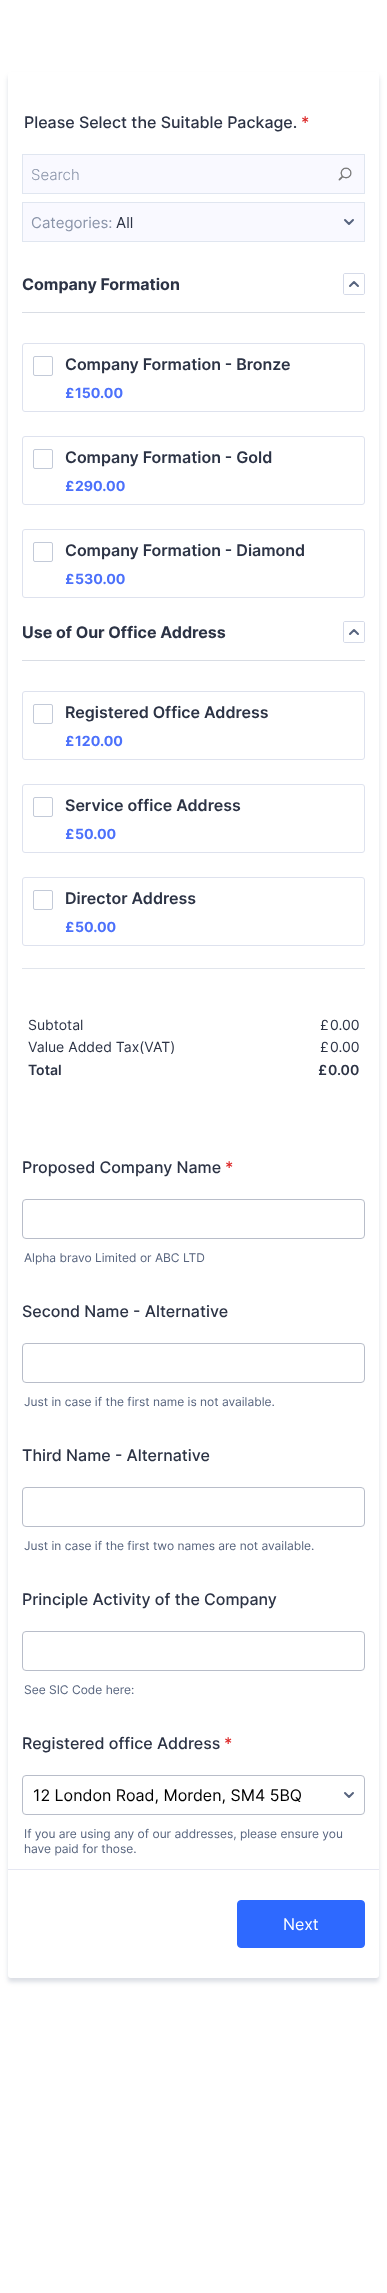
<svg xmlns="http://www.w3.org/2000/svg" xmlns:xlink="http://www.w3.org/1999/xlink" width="387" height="2293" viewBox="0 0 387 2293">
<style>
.cls-1{font:500 16px Inter;fill:#2c3345}
.cls-2{font:500 16px Inter;fill:#dc2626}
.cls-3{font:300 15px Inter;fill:#8a94a9}
.cls-4{font:15px Inter;fill:#8a94a9}
.cls-5{font:15px Inter;fill:#2c3345}
.cls-6{font:bold 16px Inter;fill:#2c3345}
.cls-7{font:600 16px Inter;fill:#2c3345}
.cls-8{font:bold 14px Inter;fill:#4c71fb}
.cls-9{font:14px Inter;fill:#2c3345}
.cls-10{font:600 14px Inter;fill:#2c3345}
.cls-11{font:12px Inter;fill:#57647e}
.cls-12{font:16px Inter;fill:#000000}
.cls-13{font:16px Inter;fill:#ffffff}
</style>
<rect width="100%" height="100%" fill="#ffffff"/>
<rect fill="#57647e" fill-opacity="0.21" filter="blur(2px)" x="8" y="76" width="371" height="1906" rx="3"/>
<rect fill="#ffffff" x="8" y="72" width="371" height="1906" rx="3"/>
<rect fill="#f9f9ff" x="23" y="155" width="341" height="38"/>
<image xlink:href="image0.png" x="338" y="167" width="14" height="14"/>
<rect fill="none" stroke="#e0e6f0" x="22.5" y="154.5" width="342" height="39"/>
<rect fill="#f9f9ff" x="23" y="203" width="341" height="38"/>
<path fill="none" stroke="#57647e" stroke-width="2" stroke-linecap="round" stroke-linejoin="round" d="M345 220L349 224L353 220"/>
<rect fill="none" stroke="#e0e6f0" x="22.5" y="202.5" width="342" height="39"/>
<rect fill="#d9dde4" x="22" y="312" width="343" height="1"/>
<path fill="none" stroke="#57647e" stroke-width="2" stroke-linecap="round" stroke-linejoin="round" d="M358 286L354 282L350 286"/>
<path fill="none" stroke="#d5dae8" d="M363 294.5H345C344 294.5 343.5 294 343.5 293V275C343.5 274 344 273.5 345 273.5H363C364 273.5 364.5 274 364.5 275V293C364.5 294 364 294.5 363 294.5Z"/>
<rect fill="none" stroke="#dee2ee" x="22.5" y="343.5" width="342" height="68" rx="2.5"/>
<rect fill="none" stroke="#c3cad8" x="33.5" y="356.5" width="19" height="19" rx="1.5"/>
<rect fill="none" stroke="#dee2ee" x="22.5" y="436.5" width="342" height="68" rx="2.5"/>
<rect fill="none" stroke="#c3cad8" x="33.5" y="449.5" width="19" height="19" rx="1.5"/>
<rect fill="none" stroke="#dee2ee" x="22.5" y="529.5" width="342" height="68" rx="2.5"/>
<rect fill="none" stroke="#c3cad8" x="33.5" y="542.5" width="19" height="19" rx="1.5"/>
<rect fill="#d9dde4" x="22" y="660" width="343" height="1"/>
<path fill="none" stroke="#57647e" stroke-width="2" stroke-linecap="round" stroke-linejoin="round" d="M358 634L354 630L350 634"/>
<path fill="none" stroke="#d5dae8" d="M363 642.5H345C344 642.5 343.5 642 343.5 641V623C343.5 622 344 621.5 345 621.5H363C364 621.5 364.5 622 364.5 623V641C364.5 642 364 642.5 363 642.5Z"/>
<rect fill="none" stroke="#dee2ee" x="22.5" y="691.5" width="342" height="68" rx="2.5"/>
<rect fill="none" stroke="#c3cad8" x="33.5" y="704.5" width="19" height="19" rx="1.5"/>
<rect fill="none" stroke="#dee2ee" x="22.5" y="784.5" width="342" height="68" rx="2.5"/>
<rect fill="none" stroke="#c3cad8" x="33.5" y="797.5" width="19" height="19" rx="1.5"/>
<rect fill="none" stroke="#dee2ee" x="22.5" y="877.5" width="342" height="68" rx="2.5"/>
<rect fill="none" stroke="#c3cad8" x="33.5" y="890.5" width="19" height="19" rx="1.5"/>
<rect fill="#e1e5ec" x="22" y="968" width="343" height="1"/>
<rect fill="none" stroke="#b8bdc9" x="22.5" y="1199.5" width="342" height="39" rx="3.5"/>
<rect fill="none" stroke="#b8bdc9" x="22.5" y="1343.5" width="342" height="39" rx="3.5"/>
<rect fill="none" stroke="#b8bdc9" x="22.5" y="1487.5" width="342" height="39" rx="3.5"/>
<rect fill="none" stroke="#b8bdc9" x="22.5" y="1631.5" width="342" height="39" rx="3.5"/>
<path fill="none" stroke="#57647e" stroke-width="2" stroke-linecap="round" stroke-linejoin="round" d="M345 1793L349 1797L353 1793"/>
<rect fill="none" stroke="#b8bdc9" x="22.5" y="1775.5" width="342" height="39" rx="3.5"/>
<rect fill="#e5e7f2" x="8" y="1869" width="371" height="1"/>
<rect fill="#2e69ff" stroke="#2e69ff" x="237.5" y="1900.5" width="127" height="47" rx="3.5"/>
<text class="cls-1" x="24" y="128">Please Select the Suitable Package.</text>
<text class="cls-2" x="301" y="128">*</text>
<text class="cls-3" x="31" y="180">Search</text>
<text class="cls-4" x="31" y="228">Categories:</text>
<text class="cls-5" x="116" y="228">All</text>
<text class="cls-6" x="22" y="290">Company Formation</text>
<text class="cls-7" x="65" y="370">Company Formation - Bronze</text>
<text class="cls-8" x="65" y="398">£</text>
<text class="cls-8" x="75" y="398">150.00</text>
<text class="cls-7" x="65" y="463">Company Formation - Gold</text>
<text class="cls-8" x="65" y="491">£</text>
<text class="cls-8" x="75" y="491">290.00</text>
<text class="cls-7" x="65" y="556">Company Formation - Diamond</text>
<text class="cls-8" x="65" y="584">£</text>
<text class="cls-8" x="75" y="584">530.00</text>
<text class="cls-6" x="22" y="638">Use of Our Office Address</text>
<text class="cls-7" x="65" y="718">Registered Office Address</text>
<text class="cls-8" x="65" y="746">£</text>
<text class="cls-8" x="75" y="746">120.00</text>
<text class="cls-7" x="65" y="811">Service office Address</text>
<text class="cls-8" x="65" y="839">£</text>
<text class="cls-8" x="75" y="839">50.00</text>
<text class="cls-7" x="65" y="904">Director Address</text>
<text class="cls-8" x="65" y="932">£</text>
<text class="cls-8" x="75" y="932">50.00</text>
<text class="cls-9" x="28" y="1030">Subtotal</text>
<text class="cls-9" x="320" y="1030">£</text>
<text class="cls-9" x="330" y="1030">0.00</text>
<text class="cls-9" x="28" y="1052">Value Added Tax(VAT)</text>
<text class="cls-9" x="320" y="1052">£</text>
<text class="cls-9" x="330" y="1052">0.00</text>
<text class="cls-10" x="28" y="1075">Total</text>
<text class="cls-10" x="318" y="1075">£</text>
<text class="cls-10" x="328" y="1075">0.00</text>
<text class="cls-1" x="22" y="1173">Proposed Company Name</text>
<text class="cls-2" x="225" y="1173">*</text>
<text class="cls-11" x="24" y="1262">Alpha bravo Limited or ABC LTD</text>
<text class="cls-1" x="22" y="1317">Second Name - Alternative</text>
<text class="cls-11" x="24" y="1406">Just in case if the first name is not available.</text>
<text class="cls-1" x="22" y="1461">Third Name - Alternative</text>
<text class="cls-11" x="24" y="1550">Just in case if the first two names are not available.</text>
<text class="cls-1" x="22" y="1605">Principle Activity of the Company</text>
<text class="cls-11" x="24" y="1694">See SIC Code here:</text>
<text class="cls-1" x="22" y="1749">Registered office Address</text>
<text class="cls-2" x="224" y="1749">*</text>
<text class="cls-12" x="33" y="1801">12 London Road, Morden, SM4 5BQ</text>
<text class="cls-11"><tspan x="24" y="1838">If you are using any of our addresses, please ensure you</tspan><tspan x="24" y="1853">have paid for those.</tspan></text>
<text class="cls-13" x="283" y="1930">Next</text>
</svg>
